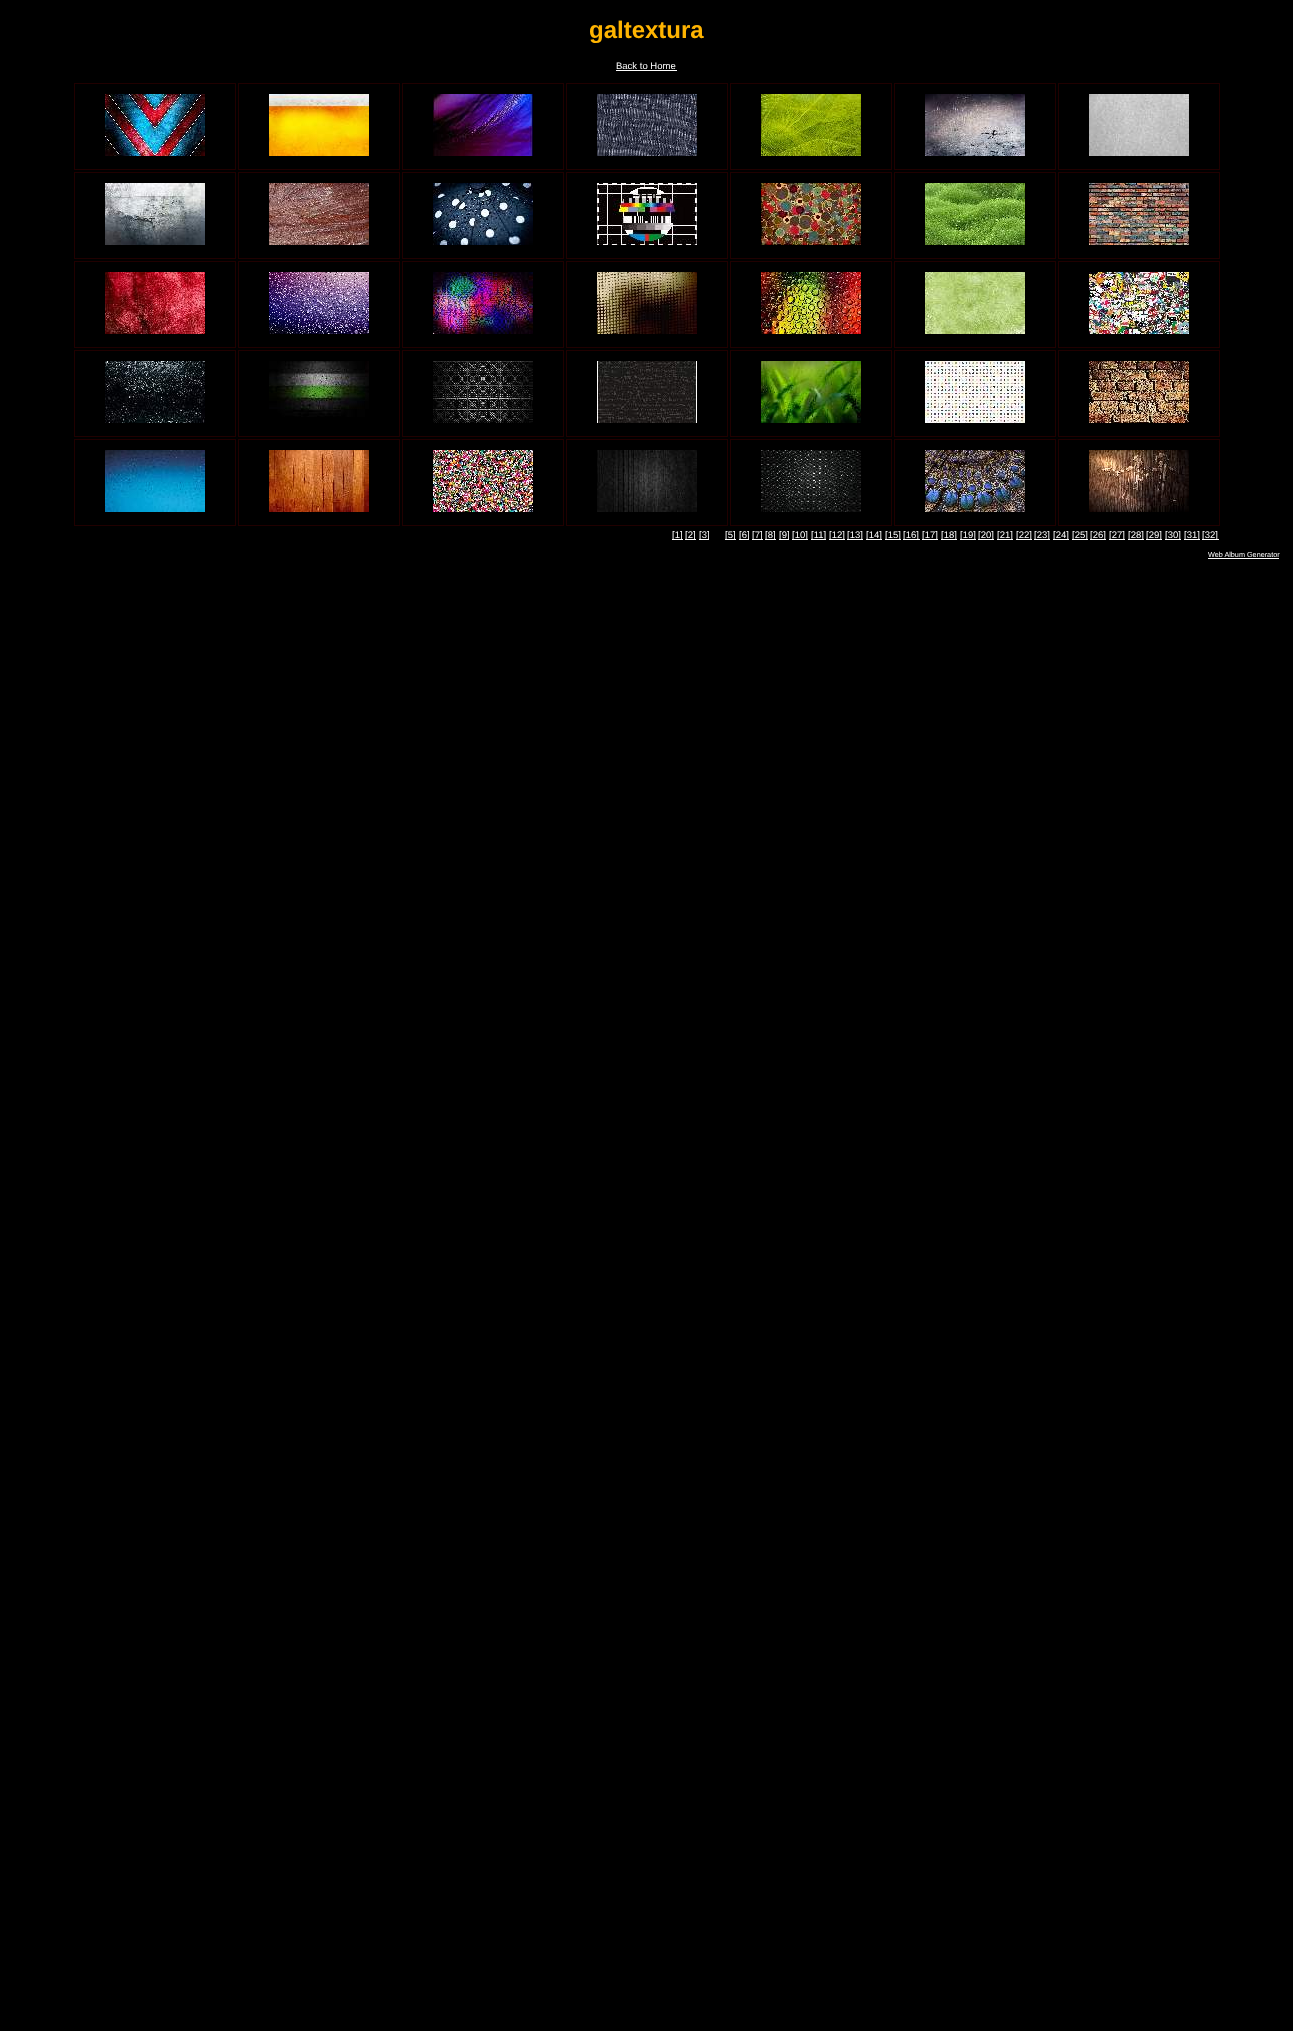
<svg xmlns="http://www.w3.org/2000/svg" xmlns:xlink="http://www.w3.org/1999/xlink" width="1293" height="2031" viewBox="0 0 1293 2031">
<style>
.cls-1{font:bold 24px Liberation Sans;fill:#ffb401}
.cls-2{font:9.5px Liberation Sans;fill:#ffffff}
.cls-3{font:7.25px Liberation Sans;fill:#ffffff}
</style>
<rect width="100%" height="100%" fill="#000000"/>
<rect fill="#ffffff" x="616" y="70" width="61" height="1"/>
<rect fill="none" stroke="#200000" x="74.5" y="83.5" width="161" height="86"/>
<image xlink:href="image0.png" x="105" y="94" width="100" height="62"/>
<rect fill="none" stroke="#200000" x="238.5" y="83.5" width="161" height="86"/>
<image xlink:href="image1.png" x="269" y="94" width="100" height="62"/>
<rect fill="none" stroke="#200000" x="402.5" y="83.5" width="161" height="86"/>
<image xlink:href="image2.png" x="433" y="94" width="100" height="62"/>
<rect fill="none" stroke="#200000" x="566.5" y="83.5" width="161" height="86"/>
<image xlink:href="image3.png" x="597" y="94" width="100" height="62"/>
<rect fill="none" stroke="#200000" x="730.5" y="83.5" width="161" height="86"/>
<image xlink:href="image4.png" x="761" y="94" width="100" height="62"/>
<rect fill="none" stroke="#200000" x="894.5" y="83.5" width="161" height="86"/>
<image xlink:href="image5.png" x="925" y="94" width="100" height="62"/>
<rect fill="none" stroke="#200000" x="1058.5" y="83.5" width="161" height="86"/>
<image xlink:href="image6.png" x="1089" y="94" width="100" height="62"/>
<rect fill="none" stroke="#200000" x="74.5" y="172.5" width="161" height="86"/>
<image xlink:href="image7.png" x="105" y="183" width="100" height="62"/>
<rect fill="none" stroke="#200000" x="238.5" y="172.5" width="161" height="86"/>
<image xlink:href="image8.png" x="269" y="183" width="100" height="62"/>
<rect fill="none" stroke="#200000" x="402.5" y="172.5" width="161" height="86"/>
<image xlink:href="image9.png" x="433" y="183" width="100" height="62"/>
<rect fill="none" stroke="#200000" x="566.5" y="172.5" width="161" height="86"/>
<image xlink:href="image10.png" x="597" y="183" width="100" height="62"/>
<rect fill="none" stroke="#200000" x="730.5" y="172.5" width="161" height="86"/>
<image xlink:href="image11.png" x="761" y="183" width="100" height="62"/>
<rect fill="none" stroke="#200000" x="894.5" y="172.5" width="161" height="86"/>
<image xlink:href="image12.png" x="925" y="183" width="100" height="62"/>
<rect fill="none" stroke="#200000" x="1058.5" y="172.5" width="161" height="86"/>
<image xlink:href="image13.png" x="1089" y="183" width="100" height="62"/>
<rect fill="none" stroke="#200000" x="74.5" y="261.5" width="161" height="86"/>
<image xlink:href="image14.png" x="105" y="272" width="100" height="62"/>
<rect fill="none" stroke="#200000" x="238.5" y="261.5" width="161" height="86"/>
<image xlink:href="image15.png" x="269" y="272" width="100" height="62"/>
<rect fill="none" stroke="#200000" x="402.5" y="261.5" width="161" height="86"/>
<image xlink:href="image16.png" x="433" y="272" width="100" height="62"/>
<rect fill="none" stroke="#200000" x="566.5" y="261.5" width="161" height="86"/>
<image xlink:href="image17.png" x="597" y="272" width="100" height="62"/>
<rect fill="none" stroke="#200000" x="730.5" y="261.5" width="161" height="86"/>
<image xlink:href="image18.png" x="761" y="272" width="100" height="62"/>
<rect fill="none" stroke="#200000" x="894.5" y="261.5" width="161" height="86"/>
<image xlink:href="image19.png" x="925" y="272" width="100" height="62"/>
<rect fill="none" stroke="#200000" x="1058.5" y="261.5" width="161" height="86"/>
<image xlink:href="image20.png" x="1089" y="272" width="100" height="62"/>
<rect fill="none" stroke="#200000" x="74.5" y="350.5" width="161" height="86"/>
<image xlink:href="image21.png" x="105" y="361" width="100" height="62"/>
<rect fill="none" stroke="#200000" x="238.5" y="350.5" width="161" height="86"/>
<image xlink:href="image22.png" x="269" y="361" width="100" height="56"/>
<rect fill="none" stroke="#200000" x="402.5" y="350.5" width="161" height="86"/>
<image xlink:href="image23.png" x="433" y="361" width="100" height="62"/>
<rect fill="none" stroke="#200000" x="566.5" y="350.5" width="161" height="86"/>
<image xlink:href="image24.png" x="597" y="361" width="100" height="62"/>
<rect fill="none" stroke="#200000" x="730.5" y="350.5" width="161" height="86"/>
<image xlink:href="image25.png" x="761" y="361" width="100" height="62"/>
<rect fill="none" stroke="#200000" x="894.5" y="350.5" width="161" height="86"/>
<image xlink:href="image26.png" x="925" y="361" width="100" height="62"/>
<rect fill="none" stroke="#200000" x="1058.5" y="350.5" width="161" height="86"/>
<image xlink:href="image27.png" x="1089" y="361" width="100" height="62"/>
<rect fill="none" stroke="#200000" x="74.5" y="439.5" width="161" height="86"/>
<image xlink:href="image28.png" x="105" y="450" width="100" height="62"/>
<rect fill="none" stroke="#200000" x="238.5" y="439.5" width="161" height="86"/>
<image xlink:href="image29.png" x="269" y="450" width="100" height="62"/>
<rect fill="none" stroke="#200000" x="402.5" y="439.5" width="161" height="86"/>
<image xlink:href="image30.png" x="433" y="450" width="100" height="62"/>
<rect fill="none" stroke="#200000" x="566.5" y="439.5" width="161" height="86"/>
<image xlink:href="image31.png" x="597" y="450" width="100" height="62"/>
<rect fill="none" stroke="#200000" x="730.5" y="439.5" width="161" height="86"/>
<image xlink:href="image32.png" x="761" y="450" width="100" height="62"/>
<rect fill="none" stroke="#200000" x="894.5" y="439.5" width="161" height="86"/>
<image xlink:href="image33.png" x="925" y="450" width="100" height="62"/>
<rect fill="none" stroke="#200000" x="1058.5" y="439.5" width="161" height="86"/>
<image xlink:href="image34.png" x="1089" y="450" width="100" height="62"/>
<rect fill="#ffffff" x="672" y="539" width="11" height="1"/>
<rect fill="#ffffff" x="685" y="539" width="11" height="1"/>
<rect fill="#ffffff" x="699" y="539" width="10" height="1"/>
<rect fill="#ffffff" x="725" y="539" width="11" height="1"/>
<rect fill="#ffffff" x="739" y="539" width="10" height="1"/>
<rect fill="#ffffff" x="752" y="539" width="11" height="1"/>
<rect fill="#ffffff" x="765" y="539" width="11" height="1"/>
<rect fill="#ffffff" x="779" y="539" width="10" height="1"/>
<rect fill="#ffffff" x="792" y="539" width="16" height="1"/>
<rect fill="#ffffff" x="811" y="539" width="15" height="1"/>
<rect fill="#ffffff" x="829" y="539" width="16" height="1"/>
<rect fill="#ffffff" x="847" y="539" width="16" height="1"/>
<rect fill="#ffffff" x="866" y="539" width="16" height="1"/>
<rect fill="#ffffff" x="885" y="539" width="16" height="1"/>
<rect fill="#ffffff" x="903" y="539" width="17" height="1"/>
<rect fill="#ffffff" x="922" y="539" width="16" height="1"/>
<rect fill="#ffffff" x="941" y="539" width="16" height="1"/>
<rect fill="#ffffff" x="960" y="539" width="16" height="1"/>
<rect fill="#ffffff" x="978" y="539" width="16" height="1"/>
<rect fill="#ffffff" x="997" y="539" width="16" height="1"/>
<rect fill="#ffffff" x="1016" y="539" width="16" height="1"/>
<rect fill="#ffffff" x="1034" y="539" width="16" height="1"/>
<rect fill="#ffffff" x="1053" y="539" width="16" height="1"/>
<rect fill="#ffffff" x="1072" y="539" width="16" height="1"/>
<rect fill="#ffffff" x="1090" y="539" width="16" height="1"/>
<rect fill="#ffffff" x="1109" y="539" width="16" height="1"/>
<rect fill="#ffffff" x="1128" y="539" width="16" height="1"/>
<rect fill="#ffffff" x="1146" y="539" width="16" height="1"/>
<rect fill="#ffffff" x="1165" y="539" width="16" height="1"/>
<rect fill="#ffffff" x="1184" y="539" width="16" height="1"/>
<rect fill="#ffffff" x="1202" y="539" width="17" height="1"/>
<rect fill="#ffffff" x="1208" y="558" width="71" height="1"/>
<text class="cls-1" x="589" y="38">galtextura</text>
<text class="cls-2" x="616" y="69">Back to Home</text>
<text class="cls-2" x="672" y="538">[1]</text>
<text class="cls-2" x="685" y="538">[2]</text>
<text class="cls-2" x="699" y="538">[3]</text>
<text class="cls-2" x="725" y="538">[5]</text>
<text class="cls-2" x="739" y="538">[6]</text>
<text class="cls-2" x="752" y="538">[7]</text>
<text class="cls-2" x="765" y="538">[8]</text>
<text class="cls-2" x="779" y="538">[9]</text>
<text class="cls-2" x="792" y="538">[10]</text>
<text class="cls-2" x="811" y="538">[11]</text>
<text class="cls-2" x="829" y="538">[12]</text>
<text class="cls-2" x="847" y="538">[13]</text>
<text class="cls-2" x="866" y="538">[14]</text>
<text class="cls-2" x="885" y="538">[15]</text>
<text class="cls-2" x="903" y="538">[16]</text>
<text class="cls-2" x="922" y="538">[17]</text>
<text class="cls-2" x="941" y="538">[18]</text>
<text class="cls-2" x="960" y="538">[19]</text>
<text class="cls-2" x="978" y="538">[20]</text>
<text class="cls-2" x="997" y="538">[21]</text>
<text class="cls-2" x="1016" y="538">[22]</text>
<text class="cls-2" x="1034" y="538">[23]</text>
<text class="cls-2" x="1053" y="538">[24]</text>
<text class="cls-2" x="1072" y="538">[25]</text>
<text class="cls-2" x="1090" y="538">[26]</text>
<text class="cls-2" x="1109" y="538">[27]</text>
<text class="cls-2" x="1128" y="538">[28]</text>
<text class="cls-2" x="1146" y="538">[29]</text>
<text class="cls-2" x="1165" y="538">[30]</text>
<text class="cls-2" x="1184" y="538">[31]</text>
<text class="cls-2" x="1202" y="538">[32]</text>
<text class="cls-3" x="1208" y="557">Web Album Generator</text>
</svg>
